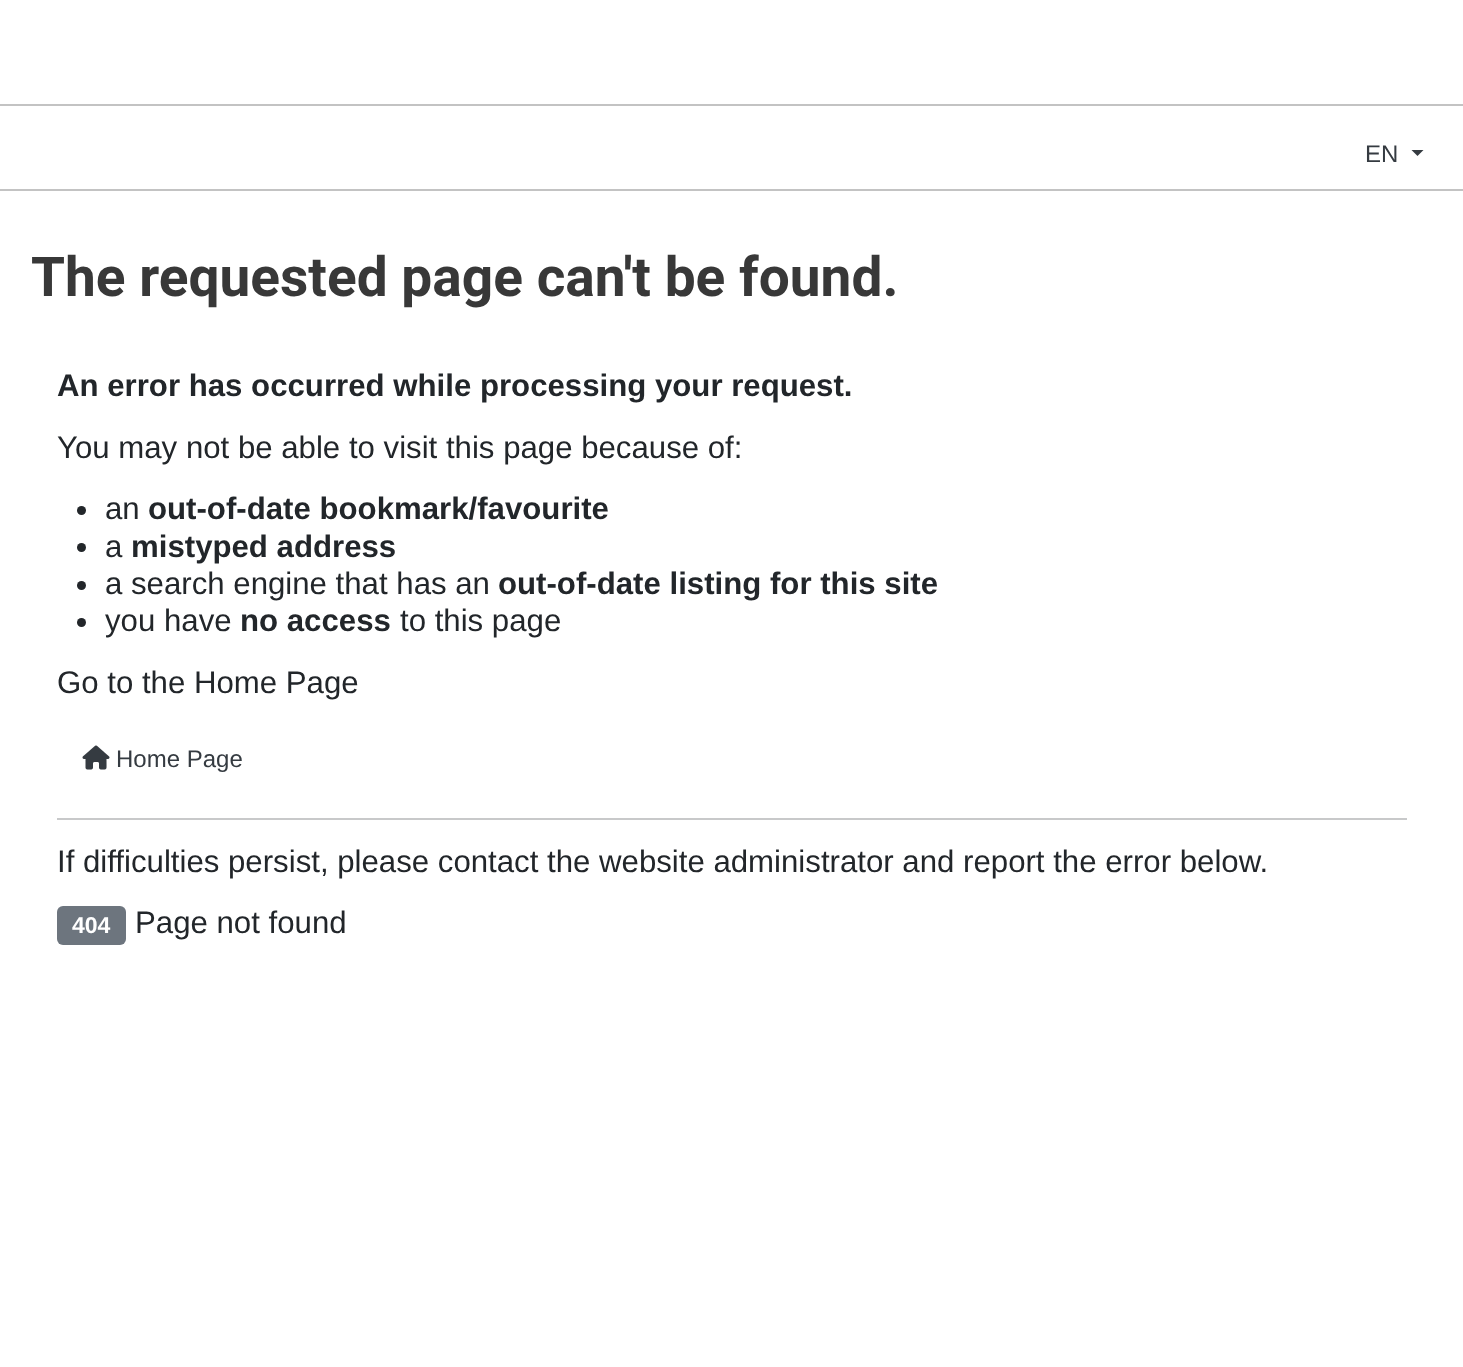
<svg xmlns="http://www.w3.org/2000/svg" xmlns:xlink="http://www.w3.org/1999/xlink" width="1463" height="1367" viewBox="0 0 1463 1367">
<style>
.cls-1{font:24px Liberation Sans;fill:#353b41}
.cls-2{font:bold 55px Roboto;fill:#383838}
.cls-3{font:bold 31.2px Liberation Sans;fill:#22262a}
.cls-4{font:31.2px Liberation Sans;fill:#22262a}
.cls-5{font:bold 23px Liberation Sans;fill:#ffffff}
</style>
<rect width="100%" height="100%" fill="#ffffff"/>
<rect fill="#c3c3c3" x="0" y="104" width="1463" height="2"/>
<rect fill="#c3c3c3" x="0" y="189" width="1463" height="2"/>
<path fill="#353b41" d="M1411.5 150H1423.5L1417.5 156Z"/>
<circle fill="#22262a" cx="81.5" cy="510.5" r="4.5"/>
<circle fill="#22262a" cx="81.5" cy="547.5" r="4.5"/>
<circle fill="#22262a" cx="81.5" cy="585.5" r="4.5"/>
<circle fill="#22262a" cx="81.5" cy="622.5" r="4.5"/>
<image xlink:href="image0.png" x="82" y="745" width="28" height="25"/>
<rect fill="#c8c9ca" x="57" y="818" width="1350" height="2"/>
<rect fill="#6d757e" x="57" y="906" width="69" height="39" rx="6"/>
<text class="cls-1" x="1365" y="162">EN</text>
<text class="cls-2" x="31" y="296">The requested page can't be found.</text>
<text class="cls-3" x="57" y="396">An error has occurred while processing your request.</text>
<text class="cls-4" x="57" y="458">You may not be able to visit this page because of:</text>
<text class="cls-4" x="105" y="519">an</text>
<text class="cls-3" x="148" y="519">out-of-date bookmark/favourite</text>
<text class="cls-4" x="105" y="557">a</text>
<text class="cls-3" x="131" y="557">mistyped address</text>
<text class="cls-4" x="105" y="594">a search engine that has an</text>
<text class="cls-3" x="498" y="594">out-of-date listing for this site</text>
<text class="cls-4" x="105" y="631">you have</text>
<text class="cls-3" x="240" y="631">no access</text>
<text class="cls-4" x="400" y="631">to this page</text>
<text class="cls-4" x="57" y="693">Go to the Home Page</text>
<text class="cls-1" x="116" y="767">Home Page</text>
<text class="cls-4" x="57" y="872">If difficulties persist, please contact the website administrator and report the error below.</text>
<text class="cls-5" x="72" y="933">404</text>
<text class="cls-4" x="135" y="933">Page not found</text>
</svg>
